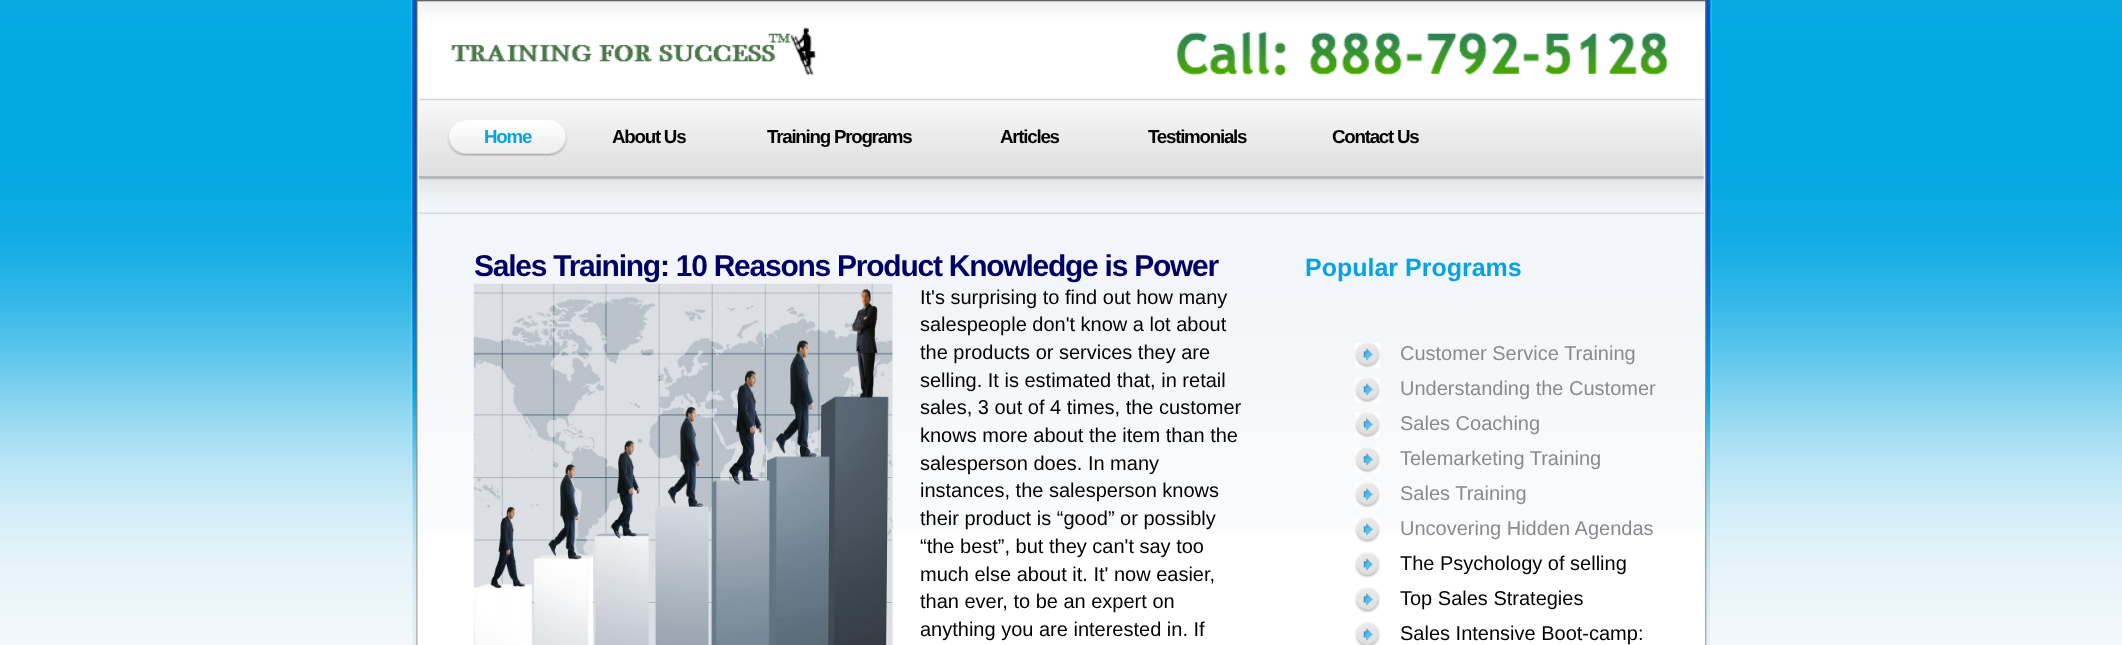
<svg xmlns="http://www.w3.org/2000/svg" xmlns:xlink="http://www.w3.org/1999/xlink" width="2122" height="645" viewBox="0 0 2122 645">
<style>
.cls-1{font:bold 18.75px Liberation Sans;letter-spacing:-1.25px;fill:#05a3e5}
.cls-2{font:bold 18.75px Liberation Sans;letter-spacing:-1.25px;fill:#000000}
.cls-3{font:bold 30px Liberation Sans;letter-spacing:-1.25px;fill:#000066}
.cls-4{font:20px Liberation Sans;fill:#000000}
.cls-5{font:bold 25px Liberation Sans;fill:#05a3e5}
.cls-6{font:20px Liberation Sans;fill:#898a8e}
</style>
<rect width="100%" height="100%" fill="#ffffff"/>
<image xlink:href="image0.png" x="0" y="0" width="2122" height="645"/>
<image xlink:href="image1.png" x="411" y="0" width="1" height="645"/>
<image xlink:href="image2.png" x="1711" y="0" width="1" height="645"/>
<image xlink:href="image3.png" x="411" y="0" width="1301" height="645"/>
<image xlink:href="image4.png" x="418" y="1" width="1286" height="532"/>
<image xlink:href="image5.png" x="451" y="27" width="366" height="49"/>
<image xlink:href="image6.png" x="1176" y="31" width="492" height="45"/>
<image xlink:href="image7.png" x="447" y="120" width="18" height="37"/>
<image xlink:href="image8.png" x="550" y="120" width="18" height="36"/>
<image xlink:href="image9.png" x="465" y="120" width="85" height="37"/>
<image xlink:href="image10.png" x="418" y="212" width="1286" height="2"/>
<image xlink:href="image11.png" x="473" y="283" width="420" height="362"/>
<image xlink:href="image12.png" x="1355" y="342" width="25" height="26"/>
<image xlink:href="image13.png" x="1355" y="377" width="25" height="26"/>
<image xlink:href="image14.png" x="1355" y="412" width="25" height="26"/>
<image xlink:href="image15.png" x="1355" y="447" width="25" height="26"/>
<image xlink:href="image16.png" x="1355" y="482" width="25" height="26"/>
<image xlink:href="image17.png" x="1355" y="517" width="25" height="26"/>
<image xlink:href="image18.png" x="1355" y="552" width="25" height="26"/>
<image xlink:href="image19.png" x="1355" y="587" width="25" height="26"/>
<image xlink:href="image20.png" x="1355" y="622" width="25" height="23"/>
<text class="cls-1" x="484" y="143">Home</text>
<text class="cls-2" x="612" y="143">About Us</text>
<text class="cls-2" x="767" y="143">Training Programs</text>
<text class="cls-2" x="1000" y="143">Articles</text>
<text class="cls-2" x="1148" y="143">Testimonials</text>
<text class="cls-2" x="1332" y="143">Contact Us</text>
<text class="cls-3" x="474" y="276">Sales Training: 10 Reasons Product Knowledge is Power</text>
<text class="cls-4"><tspan x="920" y="304">It's surprising to find out how many</tspan><tspan x="920" y="331">salespeople don't know a lot about</tspan><tspan x="920" y="359">the products or services they are</tspan><tspan x="920" y="387">selling. It is estimated that, in retail</tspan><tspan x="920" y="414">sales, 3 out of 4 times, the customer</tspan><tspan x="920" y="442">knows more about the item than the</tspan><tspan x="920" y="470">salesperson does. In many</tspan><tspan x="920" y="497">instances, the salesperson knows</tspan><tspan x="920" y="525">their product is “good” or possibly</tspan><tspan x="920" y="553">“the best”, but they can't say too</tspan><tspan x="920" y="581">much else about it. It' now easier,</tspan><tspan x="920" y="608">than ever, to be an expert on</tspan><tspan x="920" y="636">anything you are interested in. If</tspan></text>
<text class="cls-5" x="1305" y="276">Popular Programs</text>
<text class="cls-6"><tspan x="1400" y="360">Customer Service Training</tspan><tspan x="1400" y="395">Understanding the Customer</tspan><tspan x="1400" y="430">Sales Coaching</tspan><tspan x="1400" y="465">Telemarketing Training</tspan><tspan x="1400" y="500">Sales Training</tspan><tspan x="1400" y="535">Uncovering Hidden Agendas</tspan></text>
<text class="cls-4"><tspan x="1400" y="570">The Psychology of selling</tspan><tspan x="1400" y="605">Top Sales Strategies</tspan><tspan x="1400" y="640">Sales Intensive Boot-camp:</tspan></text>
</svg>
